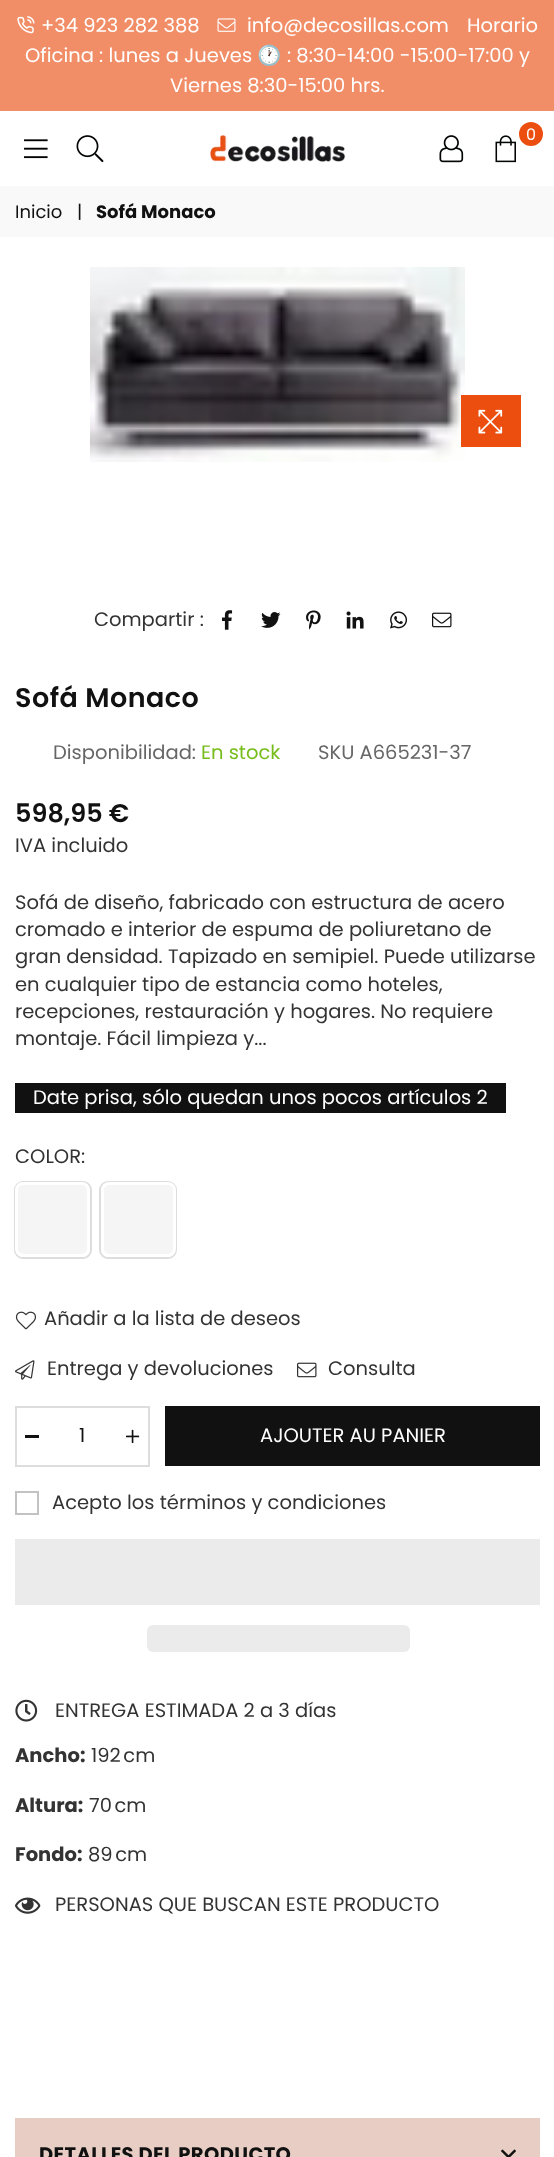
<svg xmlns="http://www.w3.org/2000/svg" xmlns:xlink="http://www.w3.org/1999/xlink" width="554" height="2157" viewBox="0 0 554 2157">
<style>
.cls-1{font:19.5px Poppins;fill:#ffffff}
.cls-2{font:19.5px Noto Color Emoji;fill:#ffffff}
.cls-3{font:16px Poppins;fill:#ffffff}
.cls-4{font:18px Poppins;fill:#111111}
.cls-5{font:bold 18px Poppins;fill:#111111}
.cls-6{font:19.5px Poppins;fill:#333333}
.cls-7{font:600 27px Poppins;letter-spacing:0.5px;fill:#111111}
.cls-8{font:19.5px Poppins;fill:#666666}
.cls-9{font:19.5px Poppins;fill:#76bd1c}
.cls-10{font:600 25.5px Poppins;fill:#111111}
.cls-11{font:19.5px Poppins;fill:#111111}
.cls-12{font:bold 19.5px Poppins;fill:#333333}
.cls-13{font:bold 19.5px Poppins;letter-spacing:0.4px;fill:#111111}
</style>
<rect width="100%" height="100%" fill="#ffffff"/>
<rect fill="#f18e67" x="0" y="0" width="554" height="111"/>
<image xlink:href="image0.png" x="17" y="16" width="18" height="18"/>
<image xlink:href="image1.png" x="217" y="18" width="19" height="14"/>
<circle fill="#ec4e10" cx="531" cy="134" r="12"/>
<image xlink:href="image2.png" x="495" y="135" width="21" height="28"/>
<image xlink:href="image3.png" x="439" y="135" width="25" height="28"/>
<image xlink:href="image4.png" x="24" y="139" width="24" height="20"/>
<image xlink:href="image5.png" x="76" y="135" width="28" height="28"/>
<image xlink:href="image6.png" x="210" y="135" width="135" height="27"/>
<rect fill="#f9f9f9" x="0" y="186" width="554" height="51"/>
<image xlink:href="image7.png" x="90" y="267" width="375" height="195"/>
<rect fill="#ec4e10" x="461" y="395" width="60" height="52"/>
<image xlink:href="image8.png" x="478" y="409" width="25" height="25"/>
<image xlink:href="image9.png" x="222" y="610" width="11" height="20"/>
<image xlink:href="image10.png" x="261" y="612" width="20" height="16"/>
<image xlink:href="image11.png" x="306" y="610" width="15" height="20"/>
<image xlink:href="image12.png" x="346" y="611" width="18" height="18"/>
<image xlink:href="image13.png" x="390" y="611" width="18" height="18"/>
<image xlink:href="image14.png" x="432" y="612" width="20" height="16"/>
<rect fill="#111111" x="15" y="1083" width="491" height="30"/>
<rect fill="none" stroke="#dddddd" stroke-width="2" x="15" y="1182" width="76" height="76" rx="8"/>
<rect fill="#f5f5f5" stroke="#ffffff" stroke-width="3" x="16.5" y="1183.5" width="72" height="72" rx="6.5"/>
<rect fill="none" stroke="#dddddd" stroke-width="2" x="100" y="1182" width="76" height="76" rx="8"/>
<rect fill="#f5f5f5" stroke="#ffffff" stroke-width="3" x="102.5" y="1183.5" width="72" height="72" rx="6.5"/>
<image xlink:href="image15.png" x="15" y="1311" width="21" height="19"/>
<image xlink:href="image16.png" x="15" y="1360" width="20" height="20"/>
<image xlink:href="image17.png" x="297" y="1362" width="20" height="16"/>
<rect fill="none" stroke="#dddddd" stroke-width="2" x="16" y="1407" width="133" height="59"/>
<rect fill="#111111" x="25" y="1435" width="14" height="3"/>
<image xlink:href="image18.png" x="126" y="1429" width="14" height="14"/>
<rect fill="#111111" x="165" y="1406" width="375" height="60"/>
<rect fill="none" stroke="#c2c2c2" stroke-width="2" x="16" y="1492" width="22" height="22"/>
<rect fill="#ebebeb" x="15" y="1539" width="525" height="66"/>
<rect fill="#ebebeb" x="147" y="1625" width="263" height="27" rx="6"/>
<image xlink:href="image19.png" x="15" y="1699" width="23" height="23"/>
<image xlink:href="image20.png" x="15" y="1897" width="26" height="17"/>
<rect fill="#e7cdc3" x="15" y="2118" width="525" height="39"/>
<image xlink:href="image21.png" x="501" y="2149" width="15" height="8"/>
<text class="cls-1" x="41" y="32">+34 923 282 388</text>
<text class="cls-1" x="247" y="32">info@decosillas.com</text>
<text class="cls-1" x="467" y="32">Horario</text>
<text class="cls-1" x="25" y="62">Oficina : lunes a Jueves</text>
<text class="cls-2" x="257" y="62">🕐</text>
<text class="cls-1" x="287" y="62">: 8:30-14:00 -15:00-17:00 y</text>
<text class="cls-1" x="170" y="92">Viernes 8:30-15:00 hrs.</text>
<text class="cls-3" x="526" y="140">0</text>
<text class="cls-4" x="15" y="218">Inicio</text>
<text class="cls-4" x="77" y="218">|</text>
<text class="cls-5" x="96" y="218">Sofá Monaco</text>
<text class="cls-6" x="94" y="626">Compartir :</text>
<text class="cls-7" x="15" y="707">Sofá Monaco</text>
<text class="cls-8" x="53" y="759">Disponibilidad:</text>
<text class="cls-9" x="201" y="759">En stock</text>
<text class="cls-8" x="318" y="759">SKU A665231-37</text>
<text class="cls-10" x="15" y="822">598,95 €</text>
<text class="cls-6" x="15" y="852">IVA incluido</text>
<text class="cls-6"><tspan x="15" y="909">Sofá de diseño, fabricado con estructura de acero</tspan><tspan x="15" y="936">cromado e interior de espuma de poliuretano de</tspan><tspan x="15" y="963">gran densidad. Tapizado en semipiel. Puede utilizarse</tspan><tspan x="15" y="991">en cualquier tipo de estancia como hoteles,</tspan><tspan x="15" y="1018">recepciones, restauración y hogares. No requiere</tspan><tspan x="15" y="1045">montaje. Fácil limpieza y...</tspan></text>
<text class="cls-1" x="33" y="1104">Date prisa, sólo quedan unos pocos artículos 2</text>
<text class="cls-6" x="15" y="1163">COLOR:</text>
<text class="cls-6" x="44" y="1325">Añadir a la lista de deseos</text>
<text class="cls-6" x="47" y="1375">Entrega y devoluciones</text>
<text class="cls-6" x="328" y="1375">Consulta</text>
<text class="cls-11" x="79" y="1442">1</text>
<text class="cls-1" x="260" y="1442">AJOUTER AU PANIER</text>
<text class="cls-6" x="52" y="1509">Acepto los términos y condiciones</text>
<text class="cls-6" x="55" y="1717">ENTREGA ESTIMADA 2 a 3 días</text>
<text class="cls-12" x="15" y="1762">Ancho:</text>
<text class="cls-6" x="91" y="1762">192 cm</text>
<text class="cls-12" x="15" y="1812">Altura:</text>
<text class="cls-6" x="89" y="1812">70 cm</text>
<text class="cls-12" x="15" y="1861">Fondo:</text>
<text class="cls-6" x="88" y="1861">89 cm</text>
<text class="cls-6" x="55" y="1911">PERSONAS QUE BUSCAN ESTE PRODUCTO</text>
<text class="cls-13" x="39" y="2161">DETALLES DEL PRODUCTO</text>
</svg>
